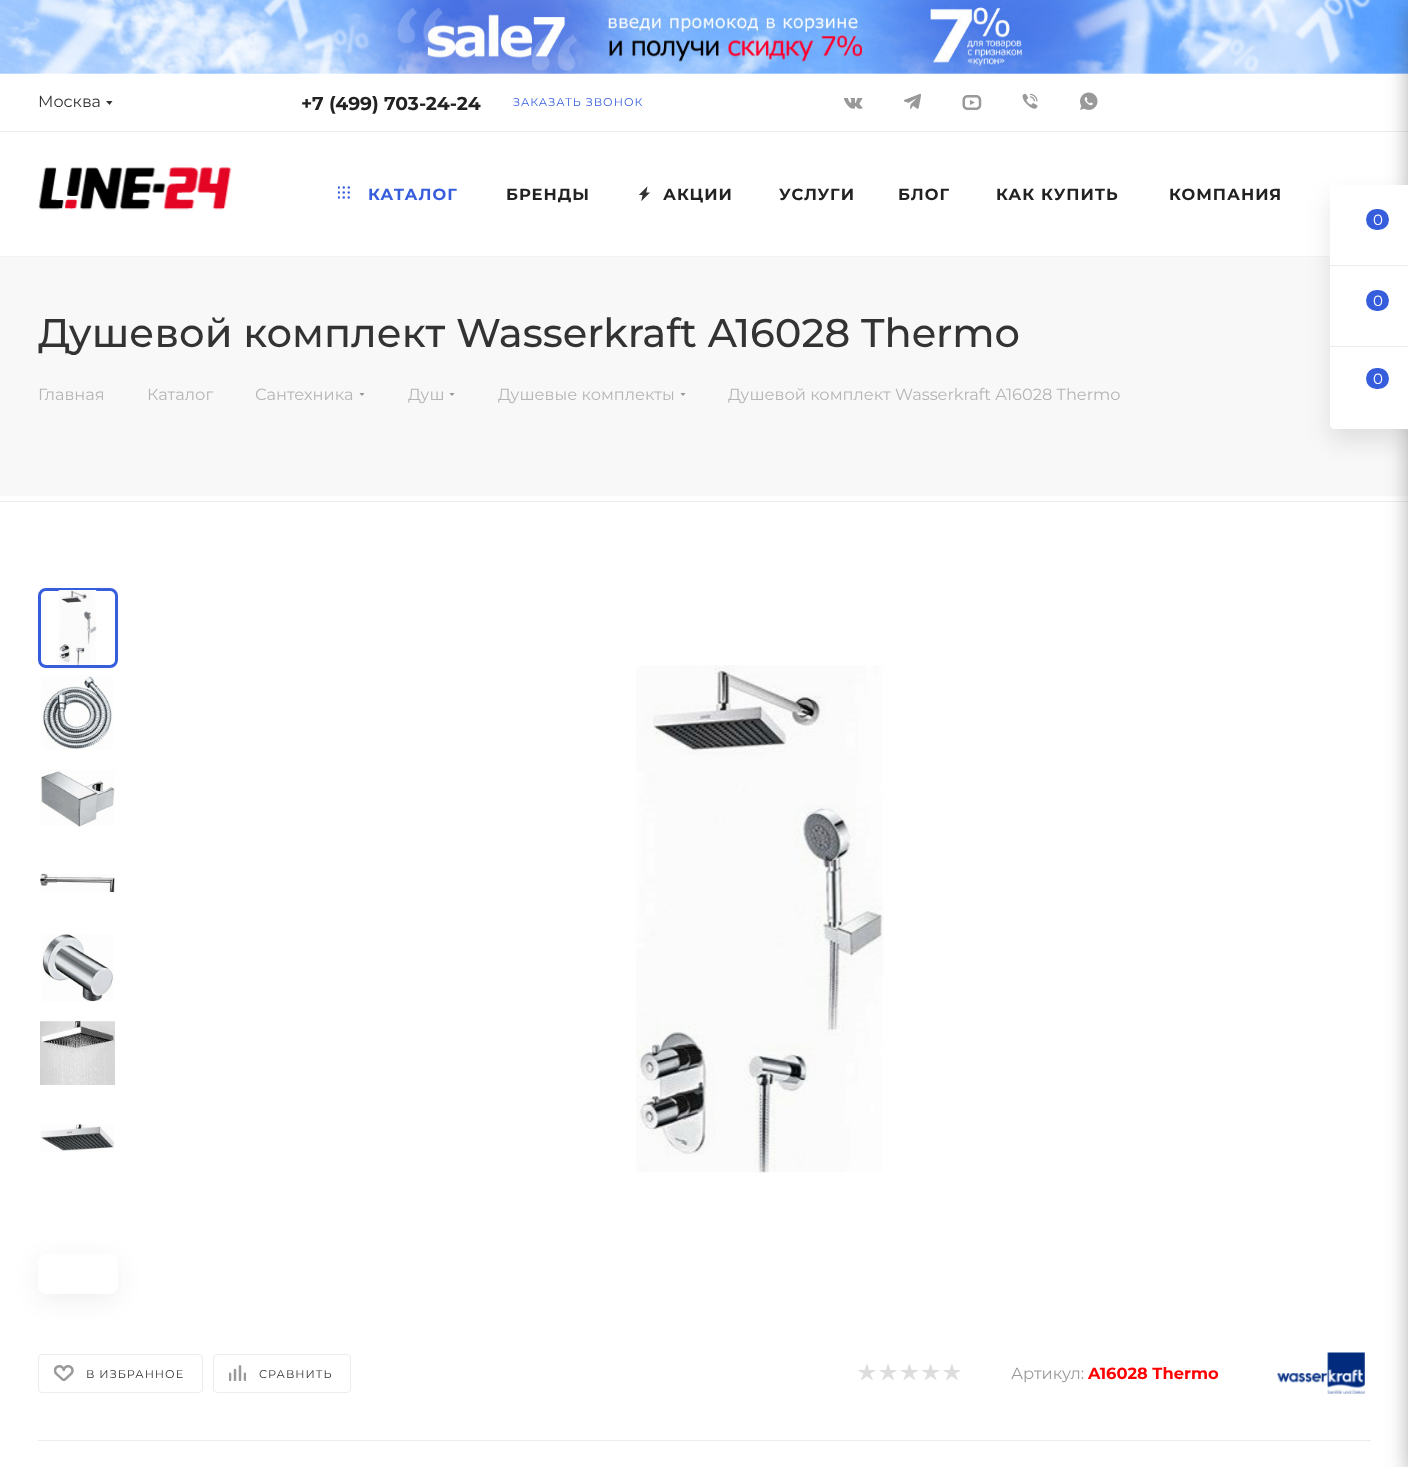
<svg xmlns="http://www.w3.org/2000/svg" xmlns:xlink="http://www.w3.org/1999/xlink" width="1408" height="1467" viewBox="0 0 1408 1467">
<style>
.cls-1{font:16px Montserrat;fill:#333333}
.cls-2{font:bold 18.75px Montserrat;fill:#222222}
.cls-3{font:11.25px Montserrat;letter-spacing:1px;fill:#365edc}
.cls-4{font:bold 16.25px Montserrat;letter-spacing:1px;fill:#365edc}
.cls-5{font:bold 16.25px Montserrat;letter-spacing:1px;fill:#222222}
.cls-6{font:500 40px Montserrat;fill:#333333}
.cls-7{font:16.25px Montserrat;fill:#b6b5b5}
.cls-8{font:11.25px Montserrat;letter-spacing:1px;fill:#333333}
.cls-9{font:16.25px Montserrat;fill:#999999}
.cls-10{font:bold 16.25px Montserrat;fill:#ff0000}
.cls-11{font:15px Montserrat;fill:#ffffff}
</style>
<defs>
<clipPath id="clip1"><rect x="359" y="393" width="6" height="4"/></clipPath>
<clipPath id="clip2"><rect x="449" y="393" width="6" height="4"/></clipPath>
<clipPath id="clip3"><rect x="680" y="393" width="6" height="4"/></clipPath>
</defs>
<rect width="100%" height="100%" fill="#ffffff"/>
<image xlink:href="image0.png" x="0" y="0" width="1408" height="74"/>
<rect fill="#ececec" x="0" y="131" width="1408" height="1"/>
<path fill="#333333" fill-rule="evenodd" d="M106 101H112.5L109.5 105Z"/>
<image xlink:href="image1.png" x="844" y="98" width="19" height="11"/>
<image xlink:href="image2.png" x="904" y="94" width="17" height="15"/>
<image xlink:href="image3.png" x="962" y="95" width="20" height="15"/>
<image xlink:href="image4.png" x="1022" y="93" width="16" height="16"/>
<image xlink:href="image5.png" x="1080" y="92" width="18" height="18"/>
<image xlink:href="image6.png" x="38" y="167" width="194" height="43"/>
<image xlink:href="image7.png" x="338" y="186" width="12" height="13"/>
<image xlink:href="image8.png" x="639" y="186" width="11" height="15"/>
<rect fill="#f2f2f2" x="0" y="256" width="1330" height="1"/>
<rect fill="#f8f8f8" x="0" y="257" width="1408" height="239"/>
<g clip-path="url(#clip1)">
<path fill="#969696" fill-rule="evenodd" d="M359 392.5H365L362 396Z"/>
</g>
<g clip-path="url(#clip2)">
<path fill="#969696" fill-rule="evenodd" d="M449 392.5H455L452 396Z"/>
</g>
<g clip-path="url(#clip3)">
<path fill="#969696" fill-rule="evenodd" d="M680 392.5H686L683 396Z"/>
</g>
<rect fill="#ececec" x="0" y="501" width="1408" height="1"/>
<rect fill="none" stroke="#365edc" stroke-width="3" x="39.5" y="589.5" width="77" height="77" rx="6.5"/>
<image xlink:href="image9.png" x="58" y="590" width="39" height="75"/>
<image xlink:href="image10.png" x="41" y="675" width="72" height="75"/>
<image xlink:href="image11.png" x="40" y="770" width="75" height="57"/>
<image xlink:href="image12.png" x="40" y="873" width="75" height="20"/>
<image xlink:href="image13.png" x="41" y="934" width="73" height="68"/>
<image xlink:href="image14.png" x="40" y="1021" width="75" height="64"/>
<image xlink:href="image15.png" x="40" y="1123" width="75" height="29"/>
<rect fill="#222222" fill-opacity="0.07" filter="blur(12.5px)" x="38" y="1260" width="80" height="40" rx="8"/>
<rect fill="#ffffff" x="38" y="1254" width="80" height="40" rx="8"/>
<image xlink:href="image16.png" x="636" y="665" width="248" height="508"/>
<rect fill="#ececec" x="38" y="1440" width="1333" height="1"/>
<rect fill="none" stroke="#ececec" x="38.5" y="1354.5" width="164" height="38" rx="3.5"/>
<image xlink:href="image17.png" x="54" y="1365" width="20" height="16"/>
<rect fill="none" stroke="#ececec" x="213.5" y="1354.5" width="137" height="38" rx="3.5"/>
<image xlink:href="image18.png" x="229" y="1365" width="17" height="16"/>
<image xlink:href="image19.png" x="858" y="1364" width="18" height="16"/>
<image xlink:href="image20.png" x="879" y="1364" width="18" height="16"/>
<image xlink:href="image21.png" x="900" y="1364" width="18" height="16"/>
<image xlink:href="image22.png" x="922" y="1364" width="18" height="16"/>
<image xlink:href="image19.png" x="943" y="1364" width="18" height="16"/>
<image xlink:href="image23.png" x="1277" y="1352" width="88" height="42"/>
<rect fill="#2c2c2c" fill-opacity="0.4" filter="blur(11px)" x="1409" y="8" width="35" height="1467" rx="2.5"/>
<rect fill="#000000" fill-opacity="0.1" filter="blur(12.5px)" x="1330" y="198" width="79" height="243" rx="5"/>
<path fill="#ffffff" d="M1335 185H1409V429H1335C1332 429 1330 427 1330 424V190C1330 187 1332 185 1335 185Z"/>
<rect fill="#ececec" x="1330" y="265" width="78" height="1"/>
<rect fill="#365edc" x="1366" y="209" width="23" height="21" rx="10.5"/>
<rect fill="#ececec" x="1330" y="346" width="78" height="1"/>
<rect fill="#365edc" x="1366" y="290" width="23" height="21" rx="10.5"/>
<rect fill="#365edc" x="1366" y="368" width="23" height="21" rx="10.5"/>
<text class="cls-1" x="38" y="107">Москва</text>
<text class="cls-2" x="301" y="110">+7 (499) 703-24-24</text>
<text class="cls-3" x="513" y="106">ЗАКАЗАТЬ ЗВОНОК</text>
<text class="cls-4" x="368" y="200">КАТАЛОГ</text>
<text class="cls-5" x="506" y="200">БРЕНДЫ</text>
<text class="cls-5" x="663" y="200">АКЦИИ</text>
<text class="cls-5" x="779" y="200">УСЛУГИ</text>
<text class="cls-5" x="898" y="200">БЛОГ</text>
<text class="cls-5" x="996" y="200">КАК КУПИТЬ</text>
<text class="cls-5" x="1169" y="200">КОМПАНИЯ</text>
<text class="cls-6" x="38" y="347">Душевой комплект Wasserkraft A16028 Thermo</text>
<text class="cls-7" x="38" y="400">Главная</text>
<text class="cls-7" x="147" y="400">Каталог</text>
<text class="cls-7" x="255" y="400">Сантехника</text>
<text class="cls-7" x="408" y="400">Душ</text>
<text class="cls-7" x="498" y="400">Душевые комплекты</text>
<text class="cls-7" x="728" y="400">Душевой комплект Wasserkraft A16028 Thermo</text>
<text class="cls-8" x="86" y="1378">В ИЗБРАННОЕ</text>
<text class="cls-8" x="259" y="1378">СРАВНИТЬ</text>
<text class="cls-9" x="1011" y="1379">Артикул:</text>
<text class="cls-10" x="1088" y="1379">A16028 Thermo</text>
<text class="cls-11" x="1373" y="225">0</text>
<text class="cls-11" x="1373" y="306">0</text>
<text class="cls-11" x="1373" y="384">0</text>
</svg>
